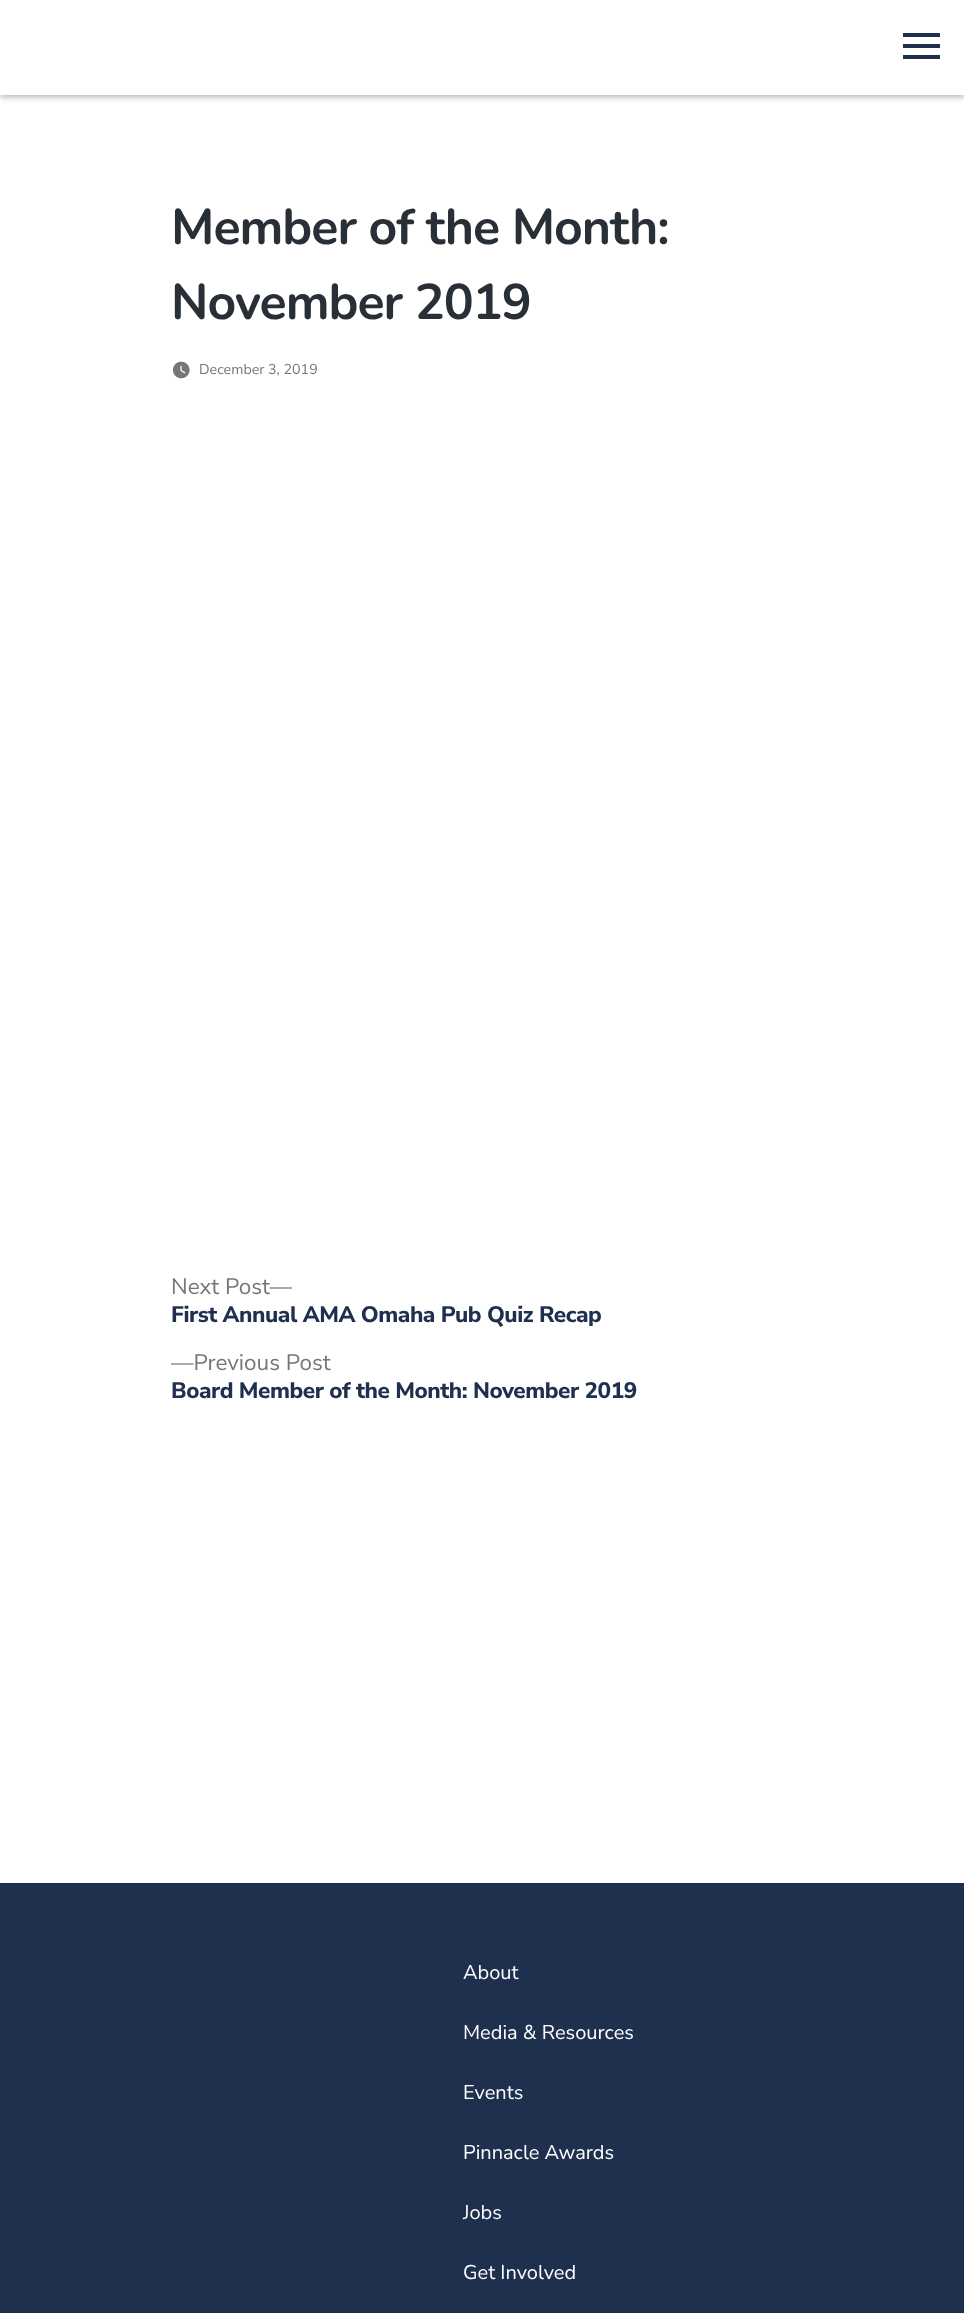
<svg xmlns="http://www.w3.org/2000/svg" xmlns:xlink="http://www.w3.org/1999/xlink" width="964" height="2313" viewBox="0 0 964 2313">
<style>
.cls-1{font:200 50px Nunito;letter-spacing:-1px;fill:#292f36}
.cls-2{font:14.25px Nunito Sans;fill:#767676}
.cls-3{font:22.5px Nunito Sans;fill:#767676}
.cls-4{font:800 22.5px Nunito Sans;letter-spacing:-0.45px;fill:#1f304f}
.cls-5{font:20px Nunito Sans;fill:#ffffff}
</style>
<defs>
<clipPath id="clip1"><rect x="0" y="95" width="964" height="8"/></clipPath>
</defs>
<rect width="100%" height="100%" fill="#ffffff"/>
<g clip-path="url(#clip1)">
<rect fill="#c5c5c5" filter="blur(2.5px)" x="0" y="3" width="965" height="95"/>
</g>
<rect fill="#1f304f" x="903" y="33" width="37" height="4"/>
<rect fill="#1f304f" x="903" y="44" width="37" height="4"/>
<rect fill="#1f304f" x="903" y="55" width="37" height="4"/>
<image xlink:href="image0.png" x="172" y="361" width="18" height="18"/>
<rect fill="#1f304f" x="0" y="1883" width="964" height="430"/>
<text class="cls-1"><tspan x="171" y="244">Member of the Month:</tspan><tspan x="171" y="319">November 2019</tspan></text>
<text class="cls-2" x="199" y="374">December 3, 2019</text>
<text class="cls-3" x="171" y="1294">Next Post—</text>
<text class="cls-4" x="171" y="1322">First Annual AMA Omaha Pub Quiz Recap</text>
<text class="cls-3" x="171" y="1370">—Previous Post</text>
<text class="cls-4" x="171" y="1398">Board Member of the Month: November 2019</text>
<text class="cls-5" x="463" y="1979">About</text>
<text class="cls-5" x="463" y="2039">Media &amp; Resources</text>
<text class="cls-5" x="463" y="2099">Events</text>
<text class="cls-5" x="463" y="2159">Pinnacle Awards</text>
<text class="cls-5" x="463" y="2219">Jobs</text>
<text class="cls-5" x="463" y="2279">Get Involved</text>
</svg>
